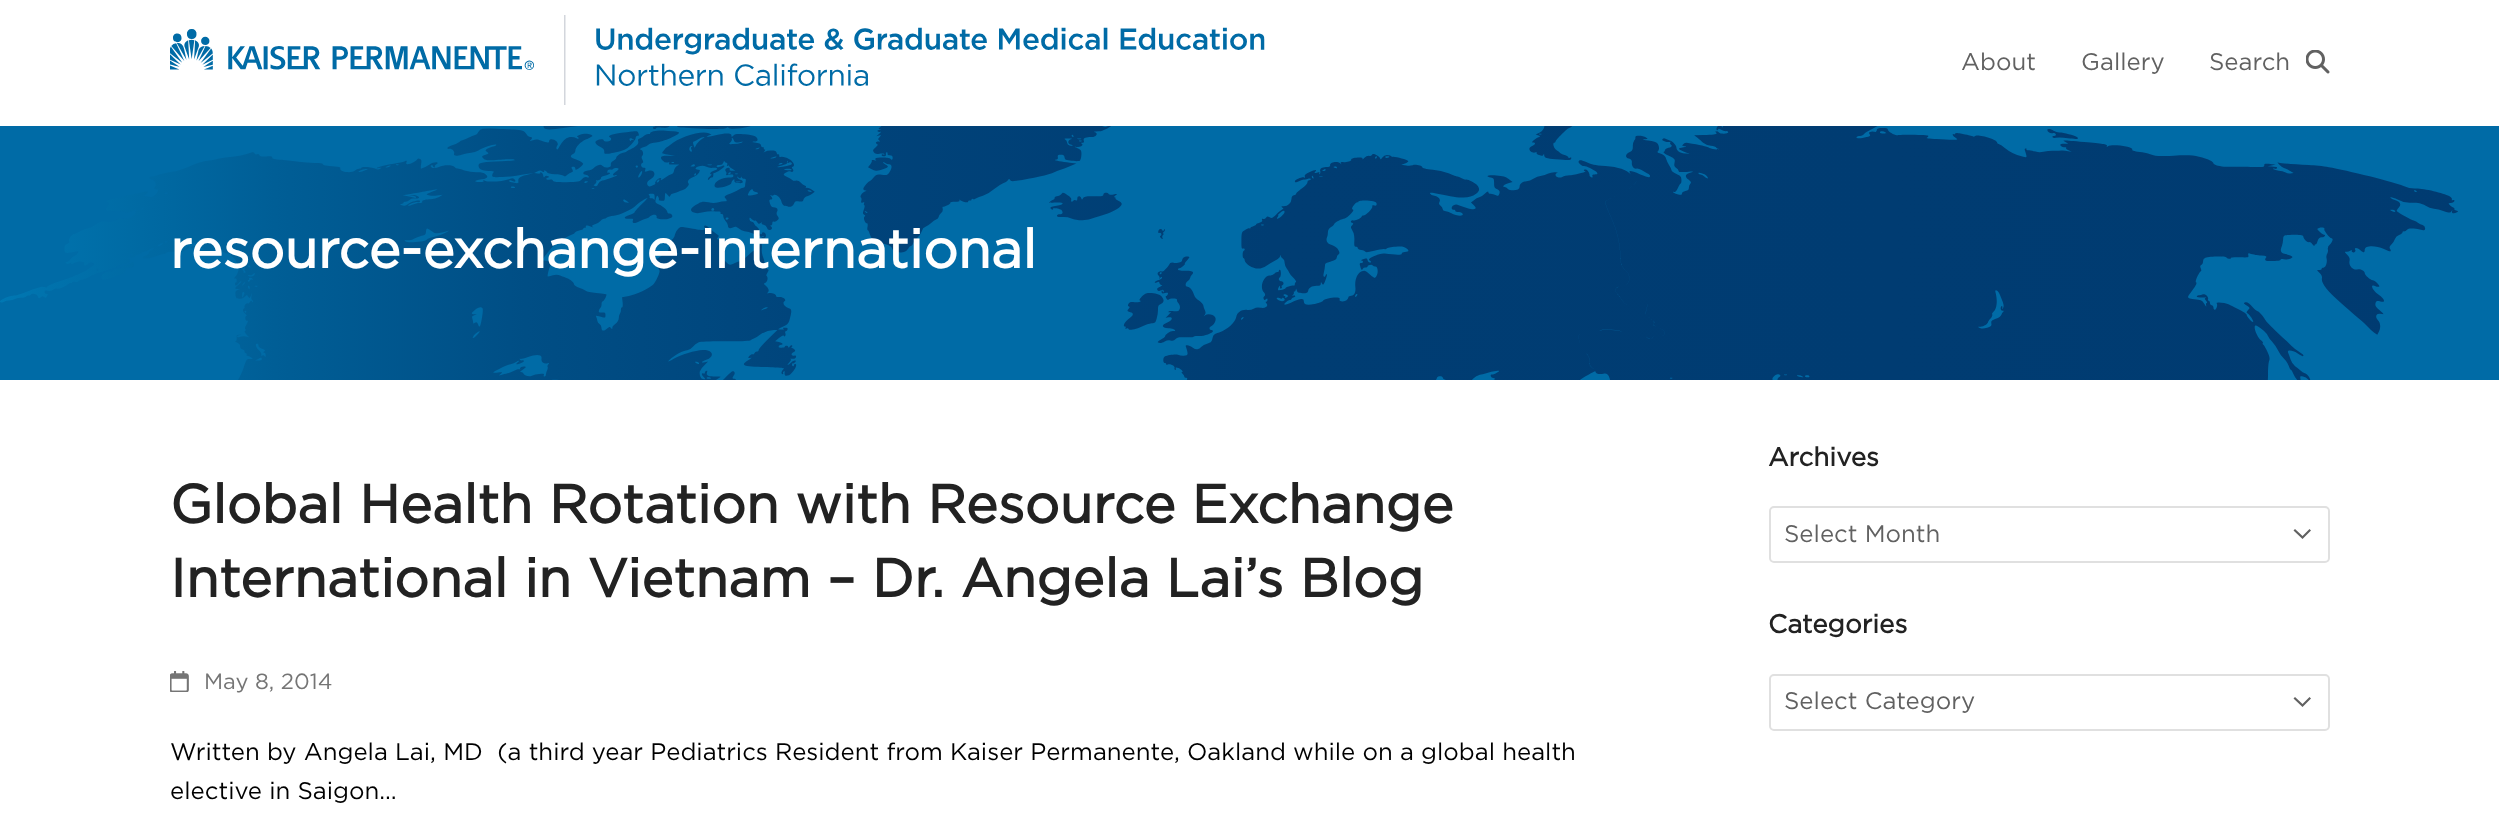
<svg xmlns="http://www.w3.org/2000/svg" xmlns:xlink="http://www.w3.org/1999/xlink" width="2499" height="827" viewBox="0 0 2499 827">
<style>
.cls-1{font:24px Gotham;fill:#616161}
.cls-2{font:bold 54px Gotham;fill:#ffffff}
.cls-3{font:bold 54px Gotham;fill:#222222}
.cls-4{font:22px Gotham;fill:#757575}
.cls-5{font:24px Gotham;fill:#000000}
.cls-6{font:bold 26px Gotham;fill:#222222}
</style>
<rect width="100%" height="100%" fill="#ffffff"/>
<image xlink:href="image0.png" x="170" y="15" width="1095" height="90"/>
<image xlink:href="image1.png" x="2306" y="50" width="24" height="24"/>
<rect fill="#006ba6" x="0" y="126" width="2499" height="254"/>
<image xlink:href="image2.png" x="0" y="126" width="2458" height="254"/>
<image xlink:href="image3.png" x="170" y="671" width="19" height="21"/>
<rect fill="none" stroke="#e0e0e0" stroke-width="2" x="1770" y="507" width="559" height="55" rx="4"/>
<path fill="#616161" d="M2295 529L2293.5 530.5L2302.5 539L2311 530.5L2309.5 529L2302.5 536Z"/>
<rect fill="none" stroke="#e0e0e0" stroke-width="2" x="1770" y="675" width="559" height="55" rx="4"/>
<path fill="#616161" d="M2295 697L2293.5 698.5L2302.5 707L2311 698.5L2309.5 697L2302.5 704Z"/>
<text class="cls-1" x="1961" y="70">About</text>
<text class="cls-1" x="2081" y="70">Gallery</text>
<text class="cls-1" x="2209" y="70">Search</text>
<text class="cls-2" x="170" y="268">resource-exchange-international</text>
<text class="cls-3"><tspan x="170" y="523">Global Health Rotation with Resource Exchange</tspan><tspan x="170" y="597">International in Vietnam – Dr. Angela Lai’s Blog</tspan></text>
<text class="cls-4" x="204" y="689">May 8, 2014</text>
<text class="cls-5" xml:space="preserve"><tspan x="170" y="760">Written by Angela Lai, MD  (a third year Pediatrics Resident from Kaiser Permanente, Oakland while on a global health</tspan><tspan x="170" y="799">elective in Saigon…</tspan></text>
<text class="cls-6" x="1768" y="466">Archives</text>
<text class="cls-1" x="1784" y="542">Select Month</text>
<text class="cls-6" x="1768" y="633">Categories</text>
<text class="cls-1" x="1784" y="709">Select Category</text>
</svg>
